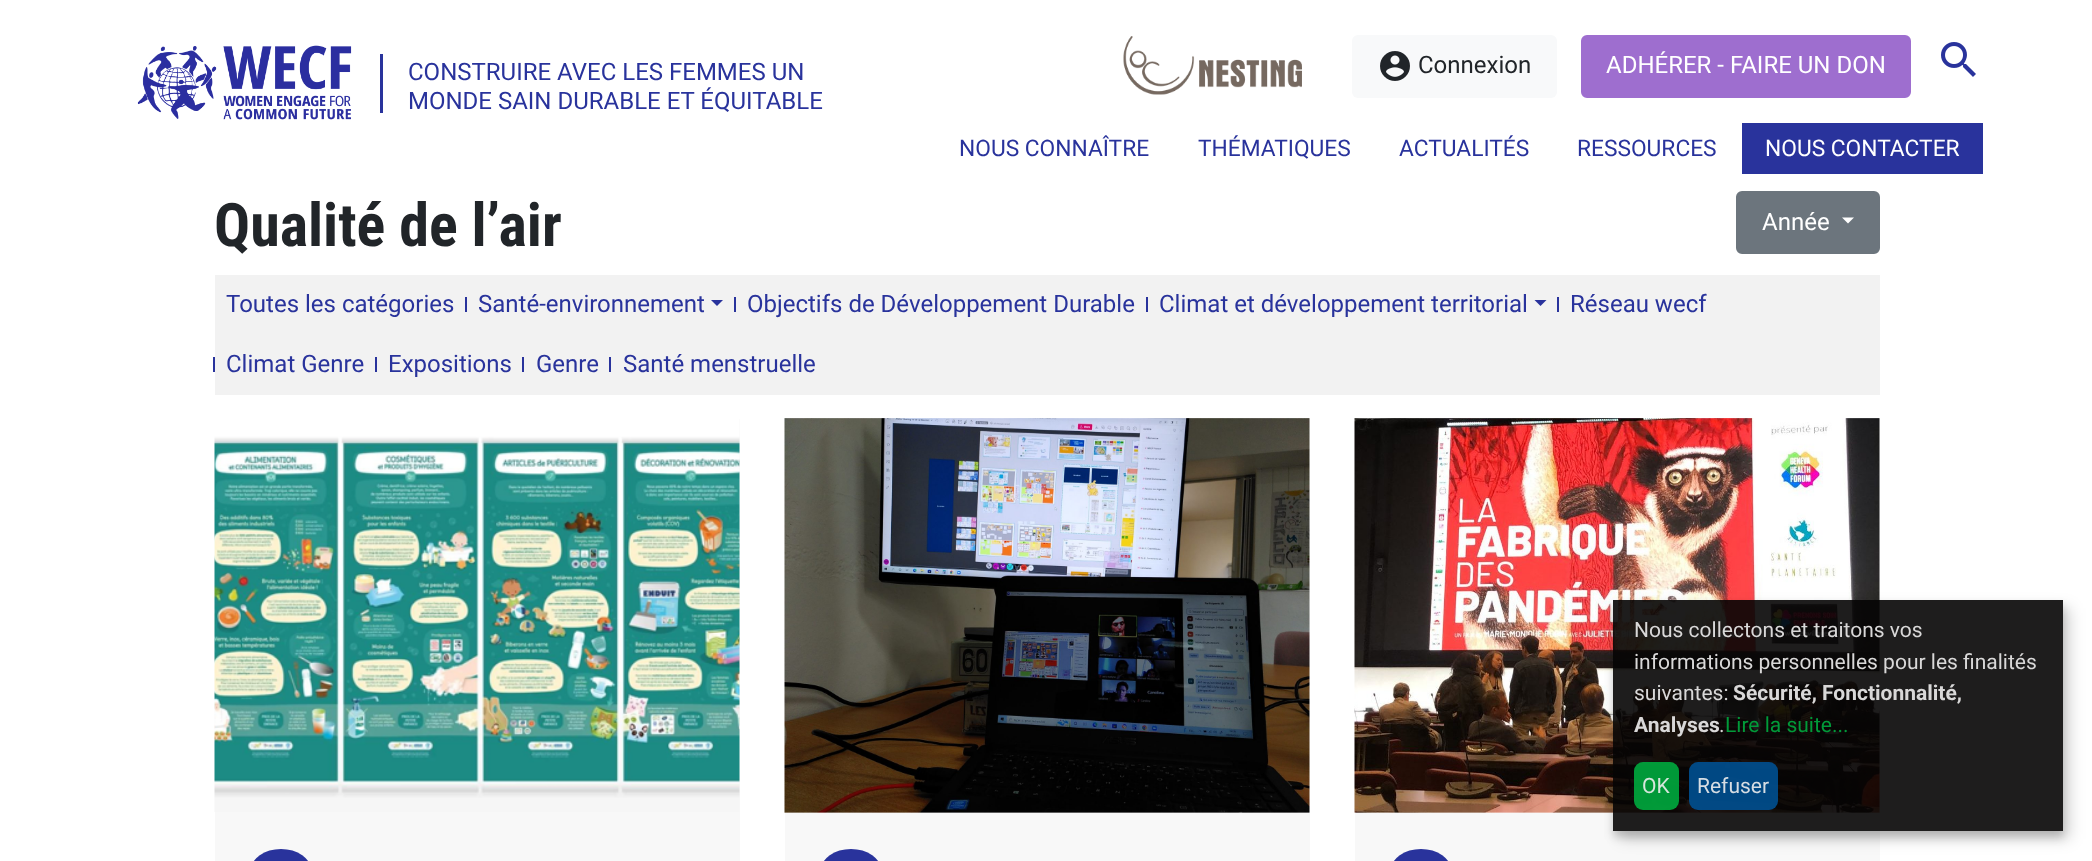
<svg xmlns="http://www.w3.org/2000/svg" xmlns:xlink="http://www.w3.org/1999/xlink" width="2092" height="861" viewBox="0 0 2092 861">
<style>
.cls-1{font:24px Roboto;fill:#29339c}
.cls-2{font:24px Roboto;fill:#212529}
.cls-3{font:24px Roboto;fill:#ffffff}
.cls-4{font:22.75px Roboto;fill:#29339c}
.cls-5{font:22.75px Roboto;fill:#ffffff}
.cls-6{font:bold 60px Roboto Condensed;fill:#212529}
.cls-7{font:21px Roboto;fill:#d9d8d8}
.cls-8{font:bold 21px Roboto;fill:#d9d8d8}
.cls-9{font:21px Roboto;fill:#019a39}
.cls-10{font:21px Roboto;fill:#d6e6dc}
.cls-11{font:21px Roboto;fill:#d6dde3}
</style>
<defs>
<clipPath id="clip1"><path d="M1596 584H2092V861H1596ZM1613 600H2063V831H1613Z" clip-rule="evenodd"/></clipPath>
<clipPath id="clip2"><path d="M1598 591H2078V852H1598ZM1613 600H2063V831H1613Z" clip-rule="evenodd"/></clipPath>
</defs>
<rect width="100%" height="100%" fill="#ffffff"/>
<image xlink:href="image0.png" x="137" y="45" width="215" height="75"/>
<rect fill="#29339c" x="380" y="54" width="3" height="59"/>
<image xlink:href="image1.png" x="1123" y="36" width="179" height="59"/>
<rect fill="#f8f9fa" x="1352" y="35" width="205" height="63" rx="6"/>
<image xlink:href="image2.png" x="1380" y="51" width="30" height="30"/>
<rect fill="#9e6ecf" stroke="#9e6ecf" stroke-width="2" x="1582" y="36" width="328" height="61" rx="5"/>
<image xlink:href="image3.png" x="1941" y="42" width="35" height="35"/>
<rect fill="#29339c" x="1742" y="123" width="241" height="51"/>
<rect fill="#6c757d" stroke="#6c757d" stroke-width="2" x="1737" y="192" width="142" height="61" rx="5"/>
<path fill="#ffffff" d="M1842 217.5H1854L1848 223.5Z"/>
<rect fill="#f2f2f2" x="215" y="275" width="1665" height="120"/>
<rect fill="#29339c" x="465" y="297" width="2" height="15"/>
<path fill="#29339c" d="M711 300H723L717 306Z"/>
<rect fill="#29339c" x="734" y="297" width="2" height="15"/>
<rect fill="#29339c" x="1146" y="297" width="2" height="15"/>
<path fill="#29339c" d="M1534.5 300H1546.5L1540.5 306Z"/>
<rect fill="#29339c" x="1557" y="297" width="2" height="15"/>
<rect fill="#29339c" x="213" y="357" width="2" height="15"/>
<rect fill="#29339c" x="375" y="357" width="2" height="15"/>
<rect fill="#29339c" x="522" y="357" width="2" height="15"/>
<rect fill="#29339c" x="609" y="357" width="2" height="15"/>
<rect fill="#f8f8f8" x="215" y="419" width="525" height="442"/>
<image xlink:href="image4.png" x="214" y="419" width="526" height="393"/>
<rect fill="#29339c" x="251" y="849" width="60" height="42" rx="30"/>
<rect fill="#f8f8f8" x="785" y="419" width="525" height="442"/>
<image xlink:href="image5.png" x="784" y="418" width="526" height="395"/>
<rect fill="#29339c" x="821" y="849" width="60" height="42" rx="30"/>
<rect fill="#f8f8f8" x="1355" y="419" width="525" height="442"/>
<image xlink:href="image6.png" x="1354" y="418" width="526" height="395"/>
<rect fill="#29339c" x="1391" y="849" width="60" height="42" rx="30"/>
<g clip-path="url(#clip1)">
<rect fill="#000000" fill-opacity="0.17" filter="blur(7.5px)" x="1620" y="608" width="450" height="231"/>
</g>
<g clip-path="url(#clip2)">
<rect fill="#000000" fill-opacity="0.18" filter="blur(4.5px)" x="1613" y="606" width="450" height="231"/>
</g>
<rect fill="#050404" fill-opacity="0.9" x="1613" y="600" width="450" height="231"/>
<rect fill="#00aa3e" fill-opacity="0.9" x="1634" y="762" width="45" height="48" rx="9"/>
<rect fill="#005091" fill-opacity="0.9" x="1689" y="762" width="89" height="48" rx="9"/>
<text class="cls-1"><tspan x="408" y="80">CONSTRUIRE AVEC LES FEMMES UN</tspan><tspan x="408" y="109">MONDE SAIN DURABLE ET ÉQUITABLE</tspan></text>
<text class="cls-2" x="1418" y="73">Connexion</text>
<text class="cls-3" x="1606" y="73">ADHÉRER - FAIRE UN DON</text>
<text class="cls-4" x="959" y="156">NOUS CONNAÎTRE</text>
<text class="cls-4" x="1198" y="156">THÉMATIQUES</text>
<text class="cls-4" x="1399" y="156">ACTUALITÉS</text>
<text class="cls-4" x="1577" y="156">RESSOURCES</text>
<text class="cls-5" x="1765" y="156">NOUS CONTACTER</text>
<text class="cls-6" x="214" y="246">Qualité de l’air</text>
<text class="cls-3" x="1762" y="230">Année</text>
<text class="cls-1" x="226" y="312">Toutes les catégories</text>
<text class="cls-1" x="478" y="312">Santé-environnement</text>
<text class="cls-1" x="747" y="312">Objectifs de Développement Durable</text>
<text class="cls-1" x="1159" y="312">Climat et développement territorial</text>
<text class="cls-1" x="1570" y="312">Réseau wecf</text>
<text class="cls-1" x="226" y="372">Climat Genre</text>
<text class="cls-1" x="388" y="372">Expositions</text>
<text class="cls-1" x="536" y="372">Genre</text>
<text class="cls-1" x="623" y="372">Santé menstruelle</text>
<text class="cls-7"><tspan x="1634" y="637">Nous collectons et traitons vos</tspan><tspan x="1634" y="669">informations personnelles pour les finalités</tspan><tspan x="1634" y="700">suivantes:</tspan></text>
<text class="cls-8" x="1733" y="700">Sécurité, Fonctionnalité,</text>
<text class="cls-8" x="1634" y="732">Analyses</text>
<text class="cls-7" x="1719" y="732">.</text>
<text class="cls-9" x="1725" y="732">Lire la suite...</text>
<text class="cls-10" x="1642" y="793">OK</text>
<text class="cls-11" x="1697" y="793">Refuser</text>
</svg>
